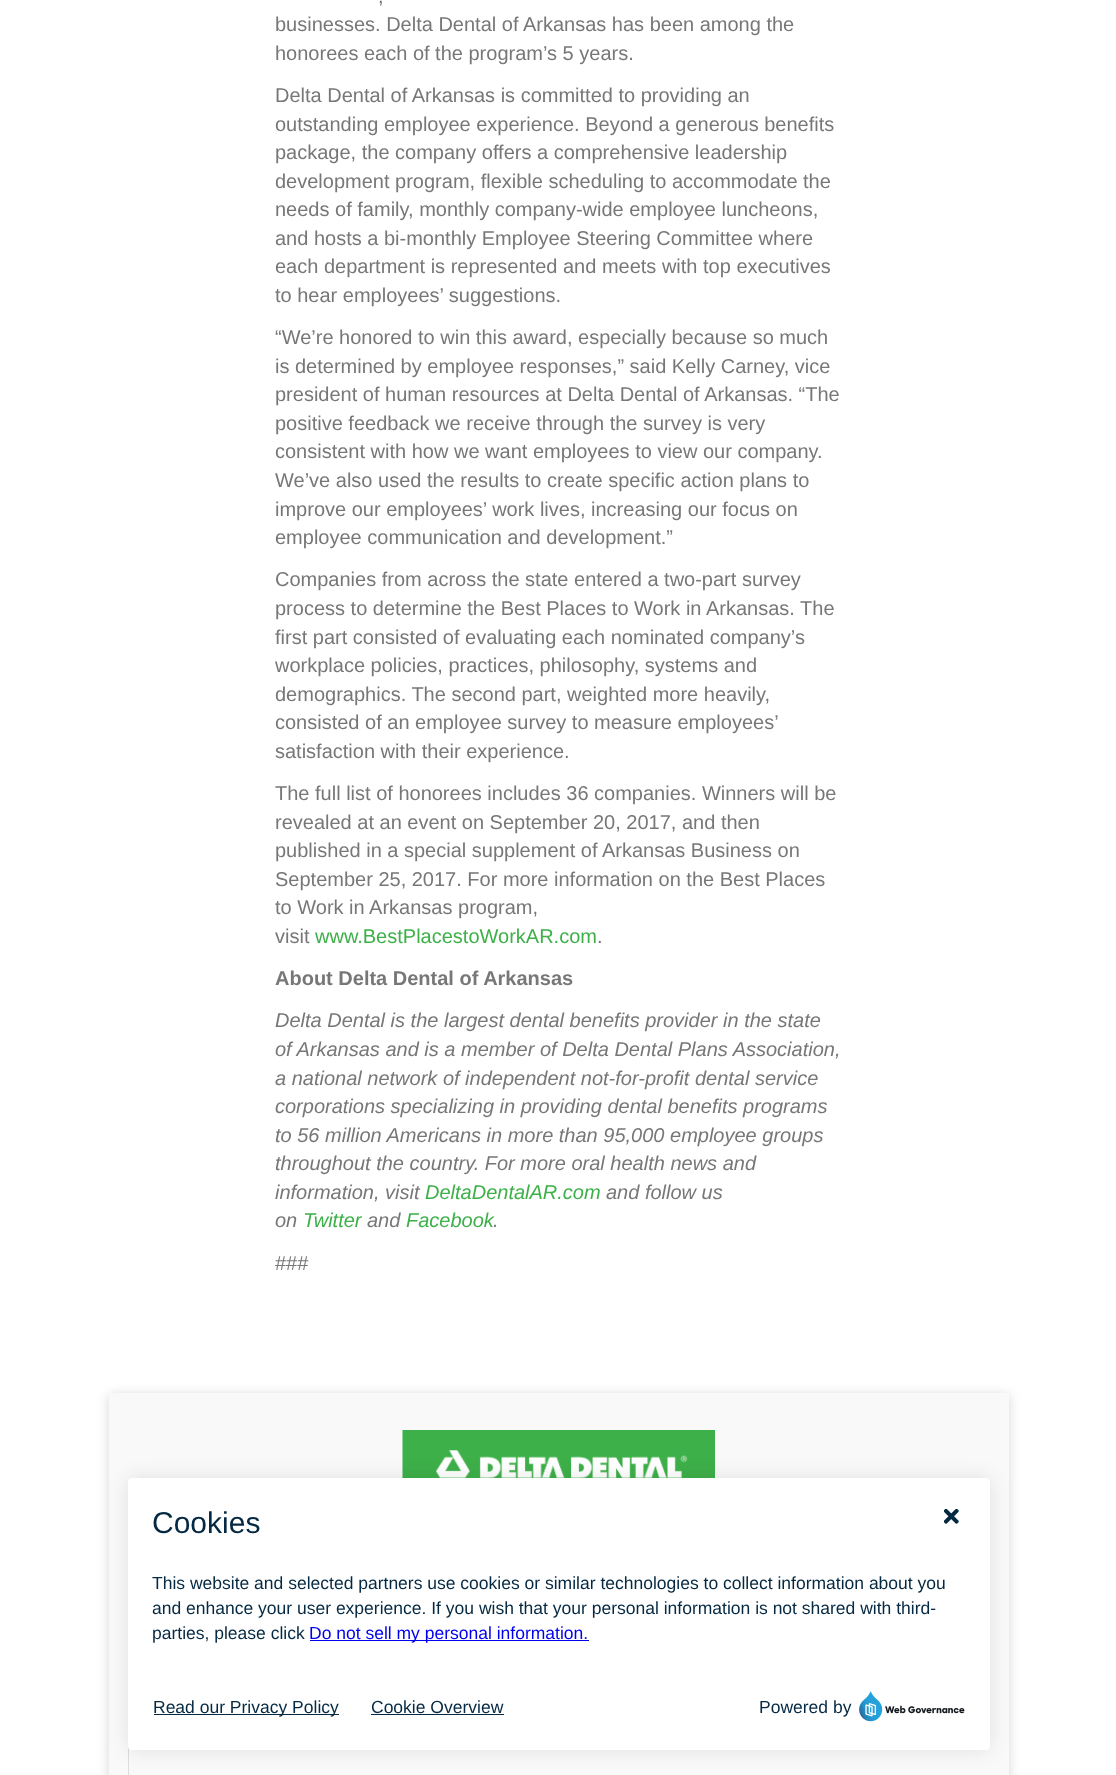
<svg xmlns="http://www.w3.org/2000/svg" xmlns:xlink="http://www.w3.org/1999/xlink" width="1116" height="1775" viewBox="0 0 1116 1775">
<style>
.cls-1{font:20px Liberation Sans;fill:#777777}
.cls-2{font:20px Liberation Sans;fill:#3db049}
.cls-3{font:bold 20px Liberation Sans;fill:#777777}
.cls-4{font:italic 20px Liberation Sans;fill:#777777}
.cls-5{font:italic 20px Liberation Sans;fill:#3db049}
.cls-6{font:30px Liberation Sans;fill:#052942}
.cls-7{font:17.5px Liberation Sans;fill:#052942}
.cls-8{font:17.5px Liberation Sans;fill:#0000ee}
</style>
<rect width="100%" height="100%" fill="#ffffff"/>
<rect fill="#000000" fill-opacity="0.16" filter="blur(6px)" x="109" y="1395" width="900" height="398"/>
<rect fill="#f9f9f9" x="109" y="1393" width="900" height="382"/>
<image xlink:href="image0.png" x="402" y="1430" width="313" height="48"/>
<rect fill="#dddddd" x="128" y="1746" width="1" height="29"/>
<rect fill="#000000" fill-opacity="0.1" filter="blur(9.5px)" x="128" y="1478" width="862" height="272" rx="4"/>
<rect fill="#ffffff" x="128" y="1478" width="862" height="272" rx="4"/>
<image xlink:href="image1.png" x="944" y="1509" width="15" height="15"/>
<rect fill="#0000ee" x="310" y="1640" width="279" height="1"/>
<rect fill="#052942" x="154" y="1714" width="185" height="1"/>
<rect fill="#052942" x="371" y="1714" width="133" height="1"/>
<image xlink:href="image2.png" x="859" y="1691" width="106" height="31"/>
<text class="cls-1" x="378" y="3">,</text>
<text class="cls-1"><tspan x="275" y="31">businesses. Delta Dental of Arkansas has been among the</tspan><tspan x="275" y="60">honorees each of the program’s 5 years.</tspan></text>
<text class="cls-1"><tspan x="275" y="102">Delta Dental of Arkansas is committed to providing an</tspan><tspan x="275" y="131">outstanding employee experience. Beyond a generous benefits</tspan><tspan x="275" y="159">package, the company offers a comprehensive leadership</tspan><tspan x="275" y="188">development program, flexible scheduling to accommodate the</tspan><tspan x="275" y="216">needs of family, monthly company-wide employee luncheons,</tspan><tspan x="275" y="245">and hosts a bi-monthly Employee Steering Committee where</tspan><tspan x="275" y="273">each department is represented and meets with top executives</tspan><tspan x="275" y="302">to hear employees’ suggestions.</tspan></text>
<text class="cls-1"><tspan x="275" y="344">“We’re honored to win this award, especially because so much</tspan><tspan x="275" y="373">is determined by employee responses,” said Kelly Carney, vice</tspan><tspan x="275" y="401">president of human resources at Delta Dental of Arkansas. “The</tspan><tspan x="275" y="430">positive feedback we receive through the survey is very</tspan><tspan x="275" y="458">consistent with how we want employees to view our company.</tspan><tspan x="275" y="487">We’ve also used the results to create specific action plans to</tspan><tspan x="275" y="516">improve our employees’ work lives, increasing our focus on</tspan><tspan x="275" y="544">employee communication and development.”</tspan></text>
<text class="cls-1"><tspan x="275" y="586">Companies from across the state entered a two-part survey</tspan><tspan x="275" y="615">process to determine the Best Places to Work in Arkansas. The</tspan><tspan x="275" y="644">first part consisted of evaluating each nominated company’s</tspan><tspan x="275" y="672">workplace policies, practices, philosophy, systems and</tspan><tspan x="275" y="701">demographics. The second part, weighted more heavily,</tspan><tspan x="275" y="729">consisted of an employee survey to measure employees’</tspan><tspan x="275" y="758">satisfaction with their experience.</tspan></text>
<text class="cls-1"><tspan x="275" y="800">The full list of honorees includes 36 companies. Winners will be</tspan><tspan x="275" y="829">revealed at an event on September 20, 2017, and then</tspan><tspan x="275" y="857">published in a special supplement of Arkansas Business on</tspan><tspan x="275" y="886">September 25, 2017. For more information on the Best Places</tspan><tspan x="275" y="914">to Work in Arkansas program,</tspan><tspan x="275" y="943">visit</tspan></text>
<text class="cls-2" x="315" y="943">www.BestPlacestoWorkAR.com</text>
<text class="cls-1" x="597" y="943">.</text>
<text class="cls-3" x="275" y="985">About Delta Dental of Arkansas</text>
<text class="cls-4"><tspan x="275" y="1027">Delta Dental is the largest dental benefits provider in the state</tspan><tspan x="275" y="1056">of Arkansas and is a member of Delta Dental Plans Association,</tspan><tspan x="275" y="1085">a national network of independent not-for-profit dental service</tspan><tspan x="275" y="1113">corporations specializing in providing dental benefits programs</tspan><tspan x="275" y="1142">to 56 million Americans in more than 95,000 employee groups</tspan><tspan x="275" y="1170">throughout the country. For more oral health news and</tspan><tspan x="275" y="1199">information, visit</tspan></text>
<text class="cls-5" x="425" y="1199">DeltaDentalAR.com</text>
<text class="cls-4" x="606" y="1199">and follow us</text>
<text class="cls-4" x="275" y="1227">on</text>
<text class="cls-5" x="303" y="1227">Twitter</text>
<text class="cls-4" x="367" y="1227">and</text>
<text class="cls-5" x="406" y="1227">Facebook</text>
<text class="cls-4" x="493" y="1227">.</text>
<text class="cls-1" x="275" y="1270">###</text>
<text class="cls-6" x="152" y="1533">Cookies</text>
<text class="cls-7"><tspan x="152" y="1589">This website and selected partners use cookies or similar technologies to collect information about you</tspan><tspan x="152" y="1614">and enhance your user experience. If you wish that your personal information is not shared with third-</tspan><tspan x="152" y="1639">parties, please click</tspan></text>
<text class="cls-8" x="309" y="1639">Do not sell my personal information.</text>
<text class="cls-7" x="153" y="1713">Read our Privacy Policy</text>
<text class="cls-7" x="371" y="1713">Cookie Overview</text>
<text class="cls-7" x="759" y="1713">Powered by</text>
</svg>
